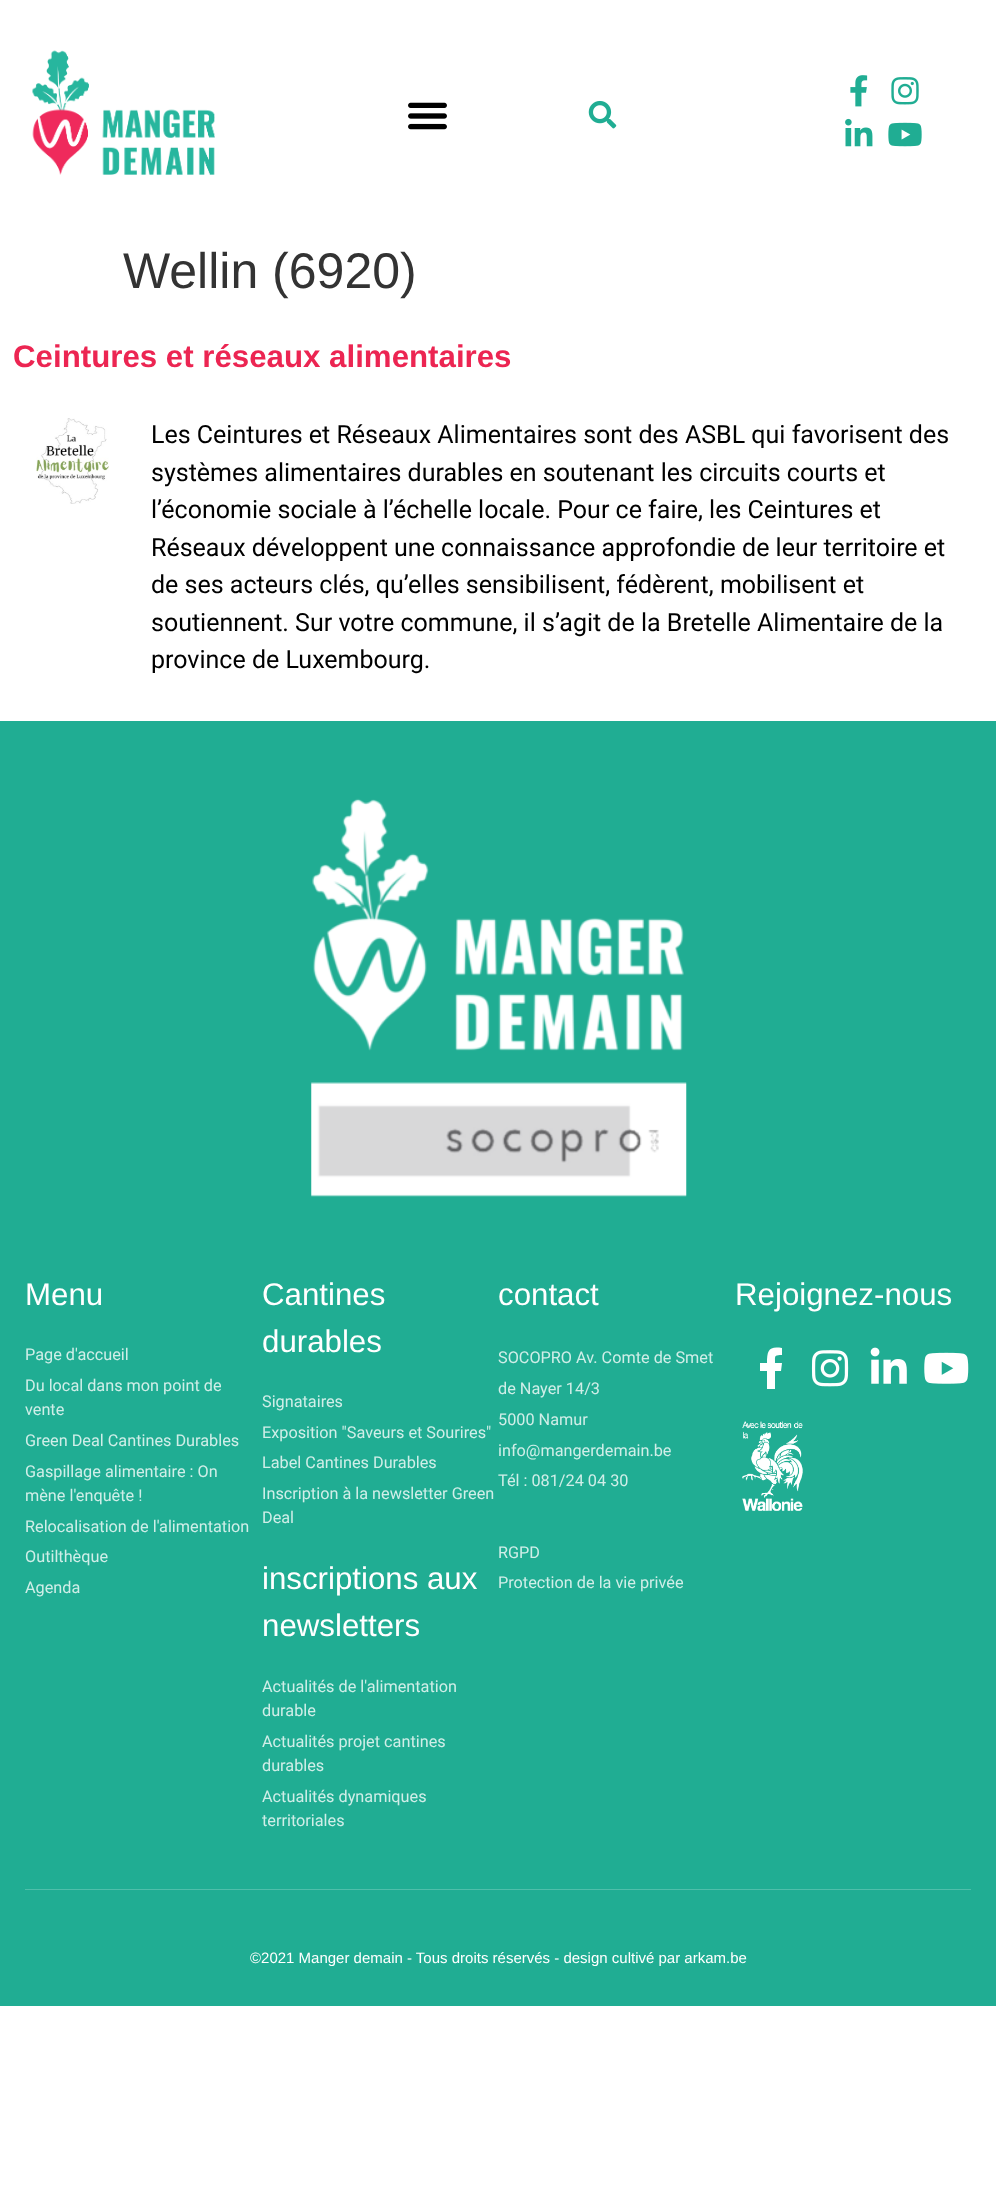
<svg xmlns="http://www.w3.org/2000/svg" xmlns:xlink="http://www.w3.org/1999/xlink" width="996" height="2194" viewBox="0 0 996 2194">
<style>
.cls-1{font:50px Liberation Sans;fill:#333333}
.cls-2{font:bold 31.25px Liberation Sans;fill:#ec2552}
.cls-3{font:25px Roboto;fill:#000000}
.cls-4{font:31.25px Liberation Sans;fill:#ffffff}
.cls-5{font:16.25px Roboto;fill:#d0eee8}
.cls-6{font:15px Liberation Sans;fill:#ffffff}
</style>
<rect width="100%" height="100%" fill="#ffffff"/>
<image xlink:href="image0.png" x="32" y="50" width="183" height="125"/>
<image xlink:href="image1.png" x="408" y="102" width="39" height="28"/>
<image xlink:href="image2.png" x="588" y="100" width="29" height="29"/>
<image xlink:href="image3.png" x="850" y="75" width="18" height="32"/>
<image xlink:href="image4.png" x="891" y="77" width="28" height="28"/>
<image xlink:href="image5.png" x="845" y="118" width="28" height="29"/>
<image xlink:href="image6.png" x="888" y="122" width="34" height="25"/>
<image xlink:href="image7.png" x="36" y="418" width="73" height="86"/>
<rect fill="#20ad93" x="0" y="721" width="996" height="1285"/>
<image xlink:href="image8.png" x="312" y="798" width="372" height="253"/>
<image xlink:href="image9.png" x="311" y="1082" width="376" height="115"/>
<path fill="#ffffff" d="M781 1371H775V1389H767V1371H760V1363H767C767 1350 769 1346 782 1348V1355C774 1355 775 1356 775 1363H782Z"/>
<image xlink:href="image10.png" x="811" y="1350" width="38" height="37"/>
<image xlink:href="image11.png" x="870" y="1347" width="37" height="37"/>
<image xlink:href="image12.png" x="924" y="1352" width="45" height="32"/>
<image xlink:href="image13.png" x="742" y="1421" width="61" height="90"/>
<rect fill="#4fbeaa" x="25" y="1889" width="946" height="1"/>
<text class="cls-1" x="123" y="288">Wellin (6920)</text>
<text class="cls-2" x="13" y="367">Ceintures et réseaux alimentaires</text>
<text class="cls-3"><tspan x="151" y="443">Les Ceintures et Réseaux Alimentaires sont des ASBL qui favorisent des</tspan><tspan x="151" y="481">systèmes alimentaires durables en soutenant les circuits courts et</tspan><tspan x="151" y="518">l’économie sociale à l’échelle locale. Pour ce faire, les Ceintures et</tspan><tspan x="151" y="556">Réseaux développent une connaissance approfondie de leur territoire et</tspan><tspan x="151" y="593">de ses acteurs clés, qu’elles sensibilisent, fédèrent, mobilisent et</tspan><tspan x="151" y="631">soutiennent. Sur votre commune, il s’agit de la Bretelle Alimentaire de la</tspan><tspan x="151" y="668">province de Luxembourg.</tspan></text>
<text class="cls-4" x="25" y="1305">Menu</text>
<text class="cls-5"><tspan x="25" y="1360">Page d'accueil</tspan><tspan x="25" y="1391">Du local dans mon point de</tspan><tspan x="25" y="1415">vente</tspan><tspan x="25" y="1446">Green Deal Cantines Durables</tspan><tspan x="25" y="1477">Gaspillage alimentaire : On</tspan><tspan x="25" y="1501">mène l'enquête !</tspan><tspan x="25" y="1532">Relocalisation de l'alimentation</tspan><tspan x="25" y="1562">Outilthèque</tspan><tspan x="25" y="1593">Agenda</tspan></text>
<text class="cls-4"><tspan x="262" y="1305">Cantines</tspan><tspan x="262" y="1352">durables</tspan></text>
<text class="cls-5"><tspan x="262" y="1407">Signataires</tspan><tspan x="262" y="1438">Exposition "Saveurs et Sourires"</tspan><tspan x="262" y="1468">Label Cantines Durables</tspan><tspan x="262" y="1499">Inscription à la newsletter Green</tspan><tspan x="262" y="1523">Deal</tspan></text>
<text class="cls-4"><tspan x="262" y="1589">inscriptions aux</tspan><tspan x="262" y="1636">newsletters</tspan></text>
<text class="cls-5"><tspan x="262" y="1692">Actualités de l'alimentation</tspan><tspan x="262" y="1716">durable</tspan><tspan x="262" y="1747">Actualités projet cantines</tspan><tspan x="262" y="1771">durables</tspan><tspan x="262" y="1802">Actualités dynamiques</tspan><tspan x="262" y="1826">territoriales</tspan></text>
<text class="cls-4" x="498" y="1305">contact</text>
<text class="cls-5"><tspan x="498" y="1363">SOCOPRO Av. Comte de Smet</tspan><tspan x="498" y="1394">de Nayer 14/3</tspan><tspan x="498" y="1425">5000 Namur</tspan><tspan x="498" y="1456">info@mangerdemain.be</tspan><tspan x="498" y="1486">Tél : 081/24 04 30</tspan></text>
<text class="cls-5"><tspan x="498" y="1558">RGPD</tspan><tspan x="498" y="1588">Protection de la vie privée</tspan></text>
<text class="cls-4" x="735" y="1305">Rejoignez-nous</text>
<text class="cls-6" x="250" y="1963">©2021 Manger demain - Tous droits réservés - design cultivé par arkam.be</text>
</svg>
